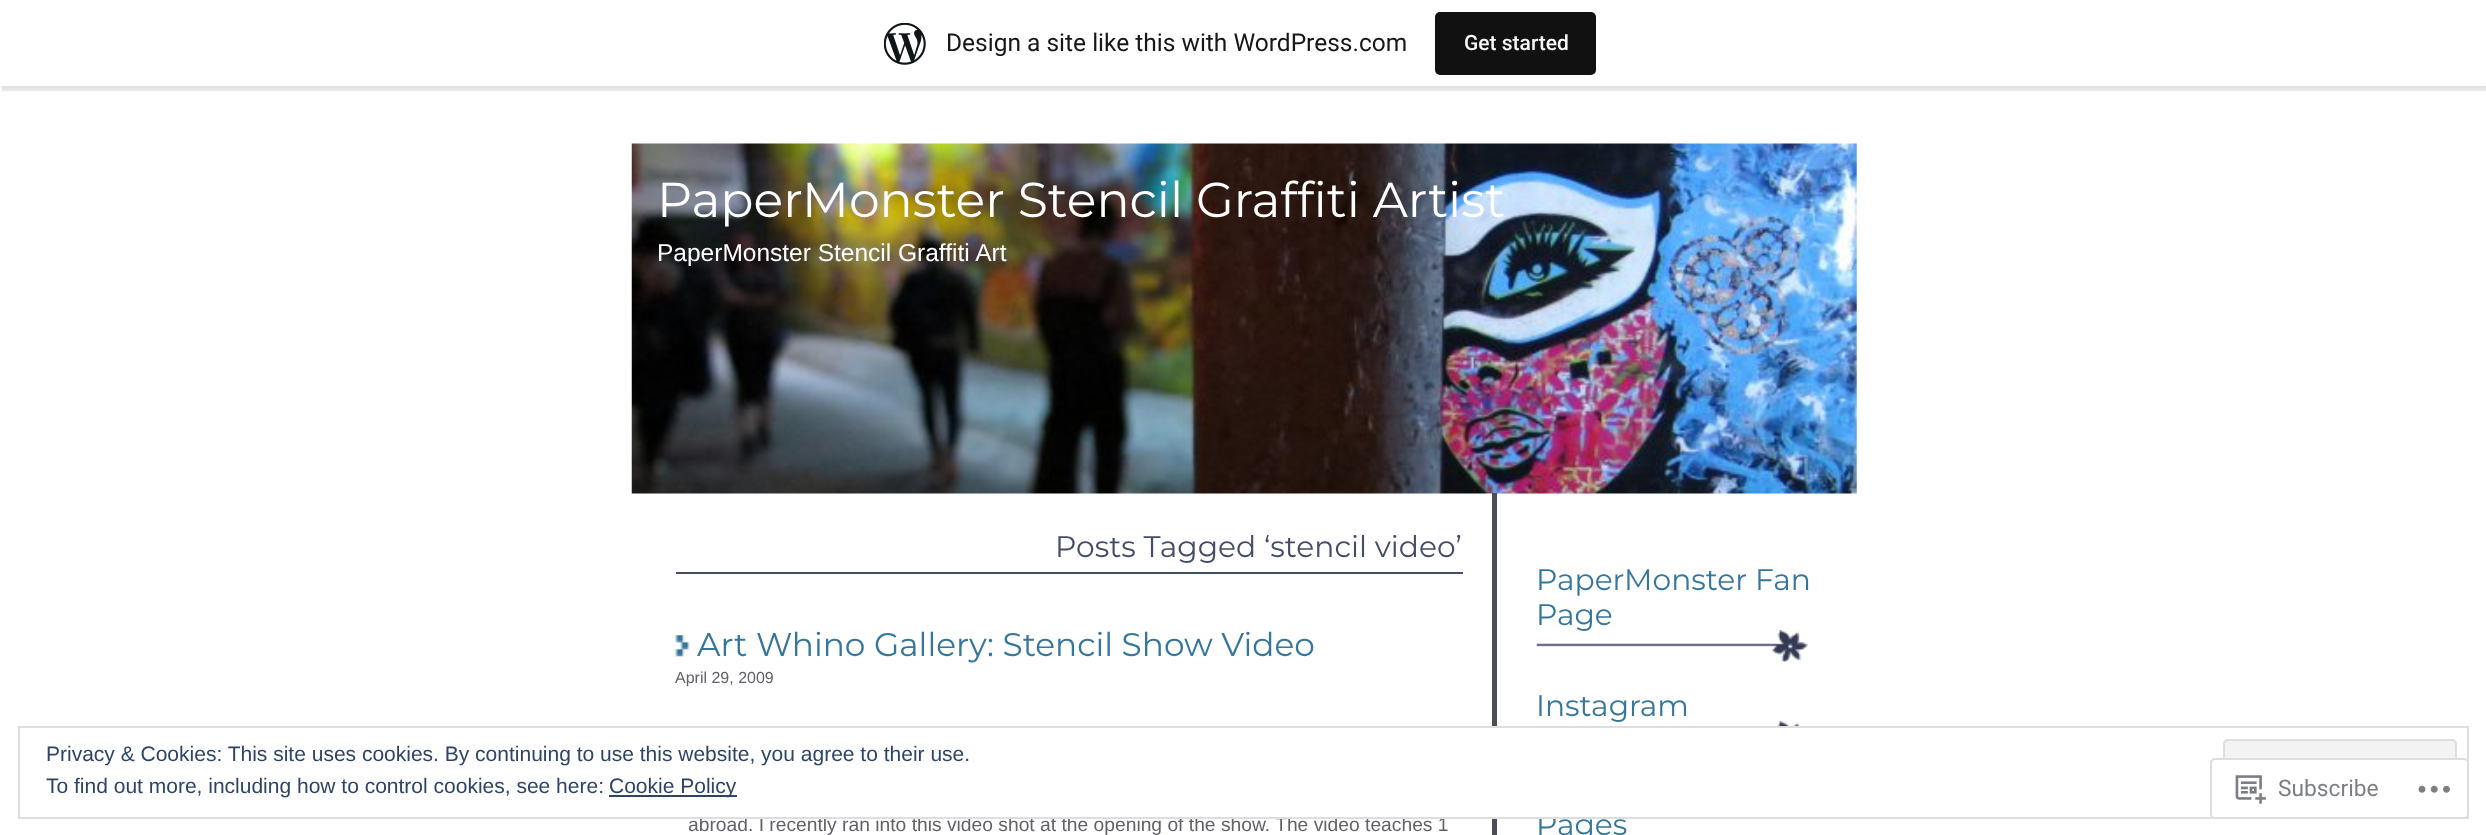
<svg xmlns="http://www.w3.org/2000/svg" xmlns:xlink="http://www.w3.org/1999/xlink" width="2486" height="835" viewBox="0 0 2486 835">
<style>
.cls-1{font:24.5px Roboto;fill:#171717}
.cls-2{font:500 21px Roboto;fill:#f6f7f7}
.cls-3{font:100 49px Montserrat;fill:#ffffff}
.cls-4{font:24.5px Liberation Sans;fill:#ffffff}
.cls-5{font:100 29.75px Montserrat;fill:#454c67}
.cls-6{font:100 32.75px Montserrat;fill:#36769c}
.cls-7{font:16px Liberation Sans;fill:#61636a}
.cls-8{font:19.25px Liberation Sans;fill:#61636a}
.cls-9{font:100 29.75px Montserrat;fill:#36769c}
.cls-10{font:21px Liberation Sans;fill:#2e4467}
.cls-11{font:22.75px Roboto;fill:#7b7f84}
</style>
<rect width="100%" height="100%" fill="#ffffff"/>
<rect fill="#000000" fill-opacity="0.05" filter="blur(2px)" x="0" y="2" width="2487" height="86"/>
<path fill="#000000" fill-opacity="0.08" d="M2 86V91H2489V5H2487V86Z"/>
<rect fill="#ffffff" x="0" y="0" width="2486" height="86"/>
<image xlink:href="image0.png" x="884" y="23" width="42" height="42"/>
<rect fill="#111111" x="1435" y="12" width="161" height="63" rx="5"/>
<image xlink:href="image1.png" x="631" y="143" width="1226" height="351"/>
<rect fill="#454c67" x="676" y="572" width="787" height="2"/>
<image xlink:href="image2.png" x="675" y="635" width="15" height="22"/>
<rect fill="#4c4f58" x="1492" y="493" width="5" height="342"/>
<image xlink:href="image3.png" x="1536" y="630" width="272" height="32"/>
<image xlink:href="image4.png" x="1777" y="721" width="23" height="5"/>
<text class="cls-1" x="946" y="51">Design a site like this with WordPress.com</text>
<text class="cls-2" x="1464" y="50">Get started</text>
<text class="cls-3" x="657" y="217">PaperMonster Stencil Graffiti Artist</text>
<text class="cls-4" x="657" y="261">PaperMonster Stencil Graffiti Art</text>
<text class="cls-5" x="1055" y="557">Posts Tagged ‘stencil video’</text>
<text class="cls-6" x="697" y="656">Art Whino Gallery: Stencil Show Video</text>
<text class="cls-7" x="675" y="683">April 29, 2009</text>
<text class="cls-8" x="688" y="831">abroad. I recently ran into this video shot at the opening of the show. The video teaches 1</text>
<text class="cls-9"><tspan x="1536" y="590">PaperMonster Fan</tspan><tspan x="1536" y="625">Page</tspan></text>
<text class="cls-9" x="1536" y="716">Instagram</text>
<text class="cls-9" x="1536" y="835">Pages</text>
<rect fill="#ffffff" x="1492" y="728" width="62" height="89"/>
<rect fill="none" stroke="#dedede" stroke-width="2" x="19" y="727" width="2449" height="91"/>
<rect fill="#f3f3f3" stroke="#dedede" stroke-width="2" x="2224" y="740" width="232" height="66" rx="4"/>
<rect fill="#2e4467" x="609" y="795" width="128" height="2"/>
<text class="cls-10" x="609" y="793">Cookie Policy</text>
<text class="cls-10" x="46" y="793">To find out more, including how to control cookies, see here:</text>
<text class="cls-10" x="46" y="761">Privacy &amp; Cookies: This site uses cookies. By continuing to use this website, you agree to their use.</text>
<rect fill="#ffffff" fill-opacity="0.98" x="2210" y="758" width="259" height="61" rx="5"/>
<rect fill="none" stroke="#dcdcde" stroke-opacity="0.98" stroke-width="2" x="2211" y="759" width="257" height="59" rx="4"/>
<image xlink:href="image5.png" x="2235" y="775" width="31" height="29"/>
<text class="cls-11" x="2278" y="796">Subscribe</text>
<image xlink:href="image6.png" x="2418" y="785" width="32" height="8"/>
</svg>
